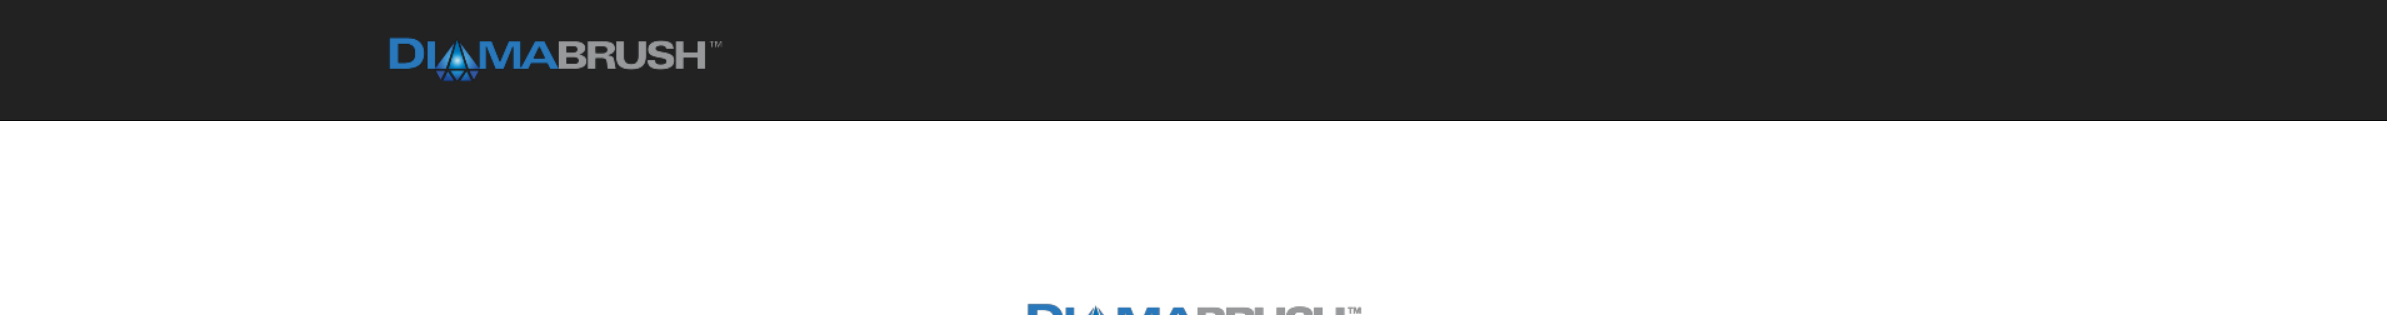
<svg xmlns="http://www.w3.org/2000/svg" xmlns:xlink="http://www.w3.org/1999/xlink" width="2387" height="315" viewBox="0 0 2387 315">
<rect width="100%" height="100%" fill="#ffffff"/>
<rect fill="#222222" x="0" y="0" width="2387" height="120"/>
<rect fill="#090909" x="0" y="120" width="2387" height="1"/>
<image xlink:href="image0.png" x="388" y="37" width="335" height="45"/>
<image xlink:href="image1.png" x="1027" y="303" width="335" height="12"/>
</svg>
